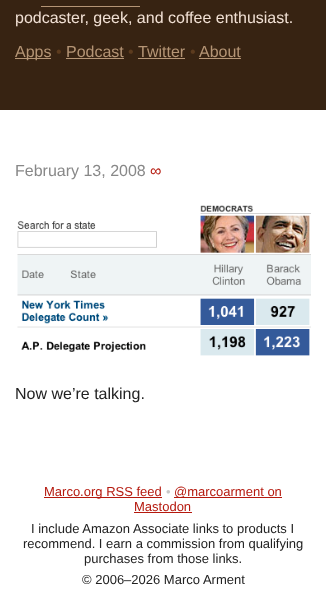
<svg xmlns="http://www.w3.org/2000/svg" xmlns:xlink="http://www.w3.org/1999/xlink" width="326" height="613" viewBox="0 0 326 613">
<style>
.cls-1{font:16px Liberation Sans;fill:#f1e0d4}
.cls-2{font:16px Liberation Sans;fill:#b59575}
.cls-3{font:16px Liberation Sans;fill:#5c3b1e}
.cls-4{font:16px Liberation Sans;fill:#888888}
.cls-5{font:16px Liberation Sans;fill:#b5190e}
.cls-6{font:16px Liberation Sans;fill:#222222}
.cls-7{font:13px Liberation Sans;fill:#b5190e}
.cls-8{font:13px Liberation Sans;fill:#c8c8c8}
.cls-9{font:13px Liberation Sans;fill:#222222}
</style>
<rect width="100%" height="100%" fill="#ffffff"/>
<rect fill="#372312" x="0" y="0" width="326" height="110"/>
<rect fill="#b59575" x="41" y="6" width="99" height="1"/>
<rect fill="#b59575" x="15" y="58" width="36" height="1"/>
<rect fill="#b59575" x="66" y="58" width="58" height="1"/>
<rect fill="#b59575" x="138" y="58" width="47" height="1"/>
<rect fill="#b59575" x="199" y="58" width="42" height="1"/>
<image xlink:href="image0.png" x="17" y="205" width="294" height="151"/>
<rect fill="#b5190e" x="44" y="497" width="118" height="1"/>
<rect fill="#b5190e" x="174" y="497" width="108" height="1"/>
<rect fill="#b5190e" x="134" y="512" width="58" height="1"/>
<text class="cls-1" x="15" y="23">podcaster, geek, and coffee enthusiast.</text>
<text class="cls-2" x="15" y="57">Apps</text>
<text class="cls-3" x="56" y="57">•</text>
<text class="cls-2" x="66" y="57">Podcast</text>
<text class="cls-3" x="128" y="57">•</text>
<text class="cls-2" x="138" y="57">Twitter</text>
<text class="cls-3" x="190" y="57">•</text>
<text class="cls-2" x="199" y="57">About</text>
<text class="cls-4" x="15" y="176">February 13, 2008</text>
<text class="cls-5" x="150" y="176">∞</text>
<text class="cls-6" x="15" y="399">Now we’re talking.</text>
<text class="cls-7" x="44" y="496">Marco.org RSS feed</text>
<text class="cls-8" x="166" y="496">•</text>
<text class="cls-7" x="174" y="496">@marcoarment on</text>
<text class="cls-7" x="134" y="511">Mastodon</text>
<text class="cls-9" x="31" y="533">I include Amazon Associate links to products I</text>
<text class="cls-9" x="23" y="548">recommend. I earn a commission from qualifying</text>
<text class="cls-9" x="84" y="563">purchases from those links.</text>
<text class="cls-9" x="82" y="584">© 2006–2026 Marco Arment</text>
</svg>
